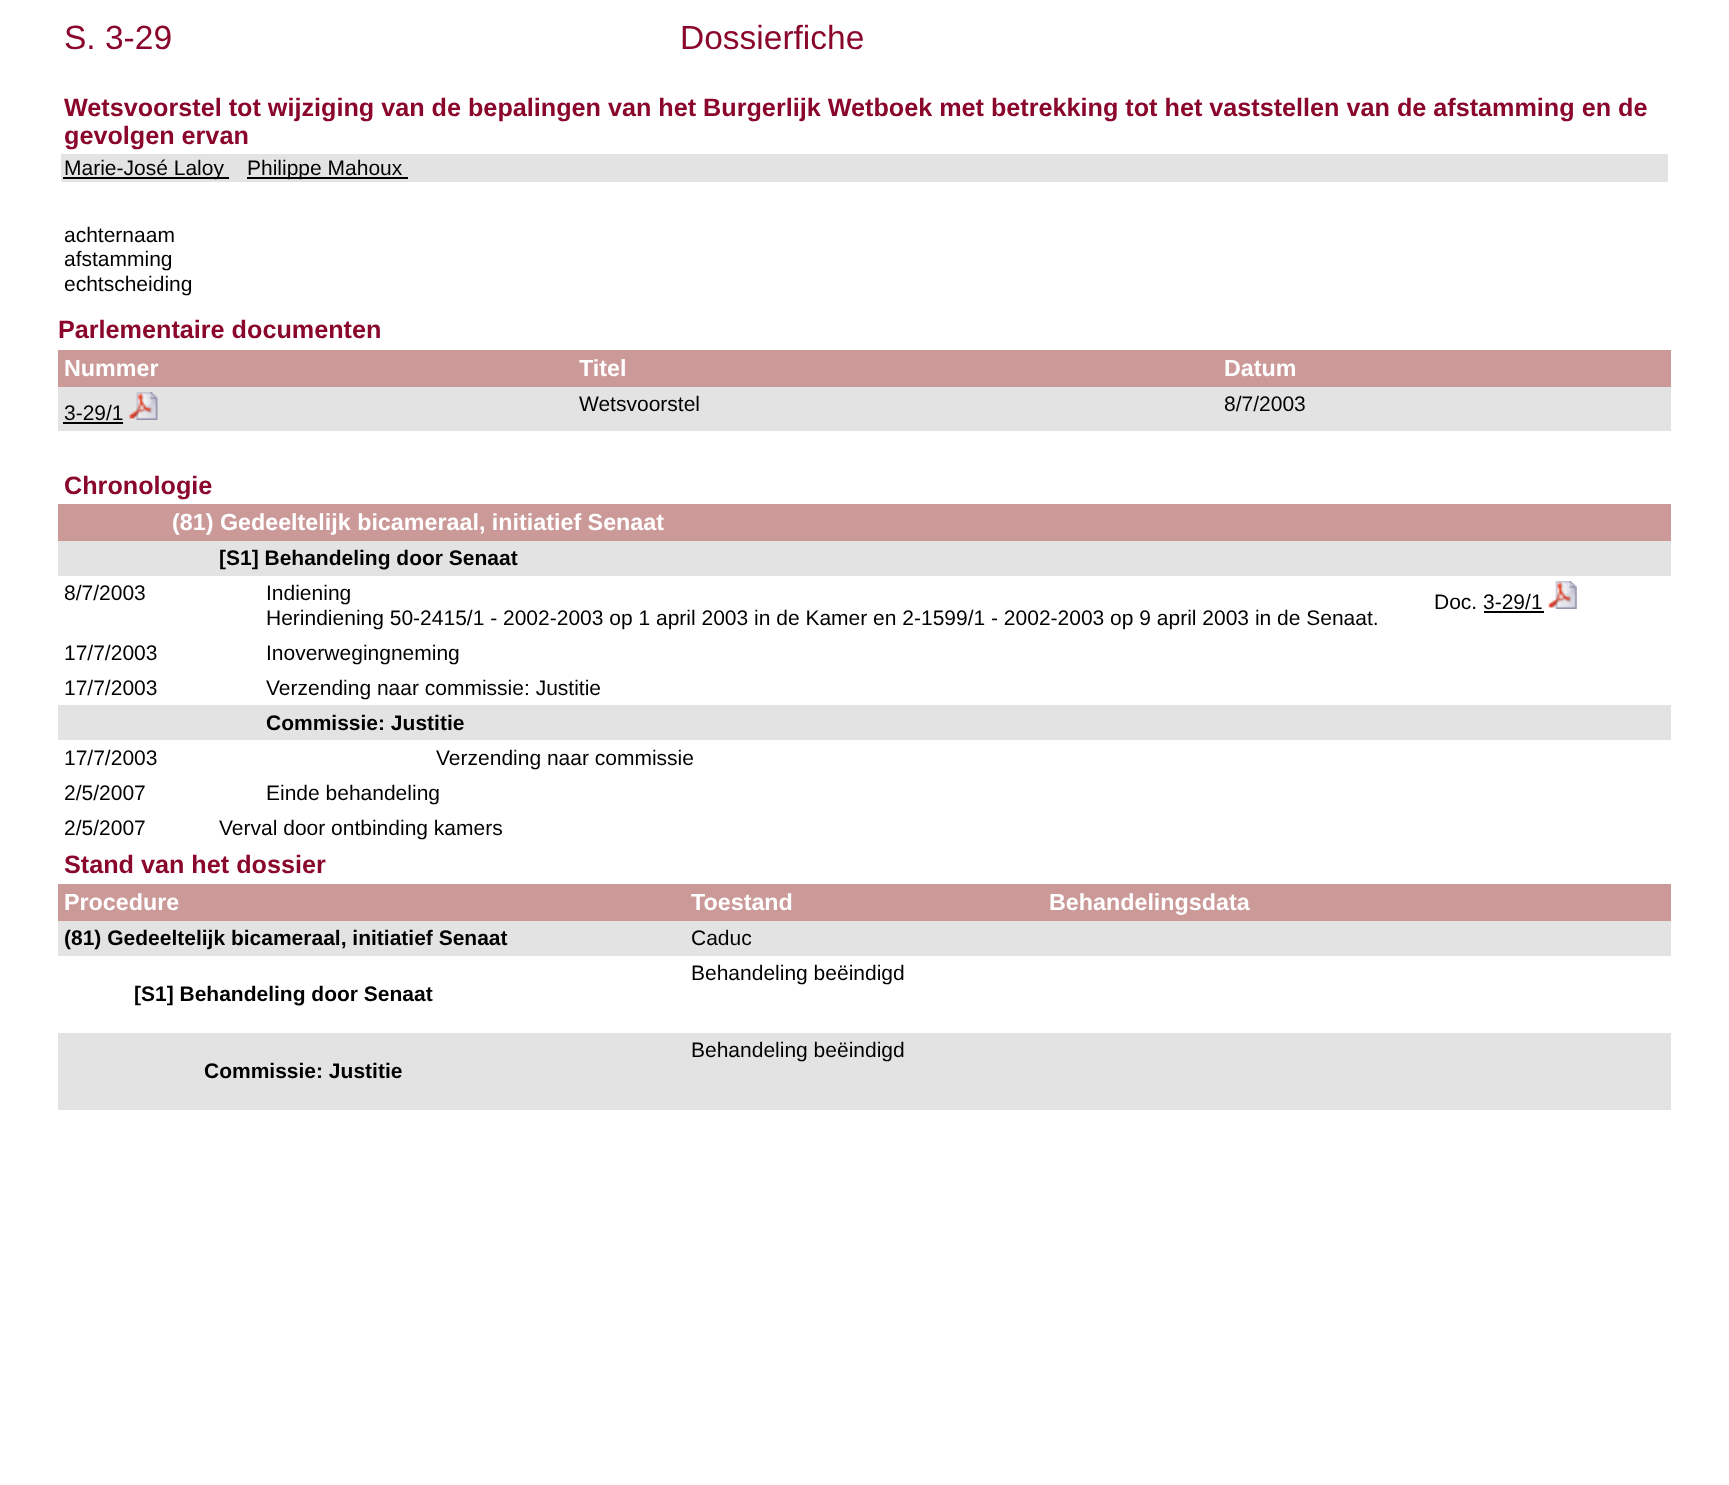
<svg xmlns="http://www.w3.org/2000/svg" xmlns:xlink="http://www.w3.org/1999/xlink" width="1729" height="1485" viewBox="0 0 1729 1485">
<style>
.cls-1{font:33.5px Liberation Sans;fill:#8a062b}
.cls-2{font:bold 25.2px Liberation Sans;fill:#8a062b}
.cls-3{font:21px Liberation Sans;fill:#000000}
.cls-4{font:bold 23.3px Liberation Sans;fill:#ffffff}
.cls-5{font:bold 21px Liberation Sans;fill:#000000}
</style>
<rect width="100%" height="100%" fill="#ffffff"/>
<rect fill="#e3e3e3" x="61" y="154" width="1607" height="28"/>
<rect fill="#000000" x="63" y="177" width="166" height="2"/>
<rect fill="#000000" x="247" y="177" width="161" height="2"/>
<rect fill="#cc9999" x="58" y="350" width="1613" height="37"/>
<rect fill="#e3e3e3" x="58" y="387" width="1613" height="44"/>
<rect fill="#000000" x="63" y="422" width="60" height="2"/>
<image xlink:href="image0.png" x="129" y="392" width="29" height="28"/>
<rect fill="#cc9999" x="58" y="504" width="1613" height="37"/>
<rect fill="#e3e3e3" x="58" y="541" width="1613" height="35"/>
<image xlink:href="image1.png" x="1548" y="581" width="29" height="28"/>
<rect fill="#000000" x="1484" y="611" width="60" height="2"/>
<rect fill="#e3e3e3" x="58" y="705" width="1613" height="35"/>
<rect fill="#cc9999" x="58" y="884" width="1613" height="37"/>
<rect fill="#e3e3e3" x="58" y="921" width="1613" height="35"/>
<rect fill="#e3e3e3" x="58" y="1033" width="1613" height="77"/>
<text class="cls-1" x="64" y="49">S. 3-29</text>
<text class="cls-1" x="680" y="49">Dossierfiche</text>
<text class="cls-2"><tspan x="64" y="116">Wetsvoorstel tot wijziging van de bepalingen van het Burgerlijk Wetboek met betrekking tot het vaststellen van de afstamming en de</tspan><tspan x="64" y="144">gevolgen ervan</tspan></text>
<text class="cls-3" x="64" y="175">Marie-José Laloy</text>
<text class="cls-3" x="247" y="175">Philippe Mahoux</text>
<text class="cls-3"><tspan x="64" y="242">achternaam</tspan><tspan x="64" y="266">afstamming</tspan><tspan x="64" y="291">echtscheiding</tspan></text>
<text class="cls-2" x="58" y="338">Parlementaire documenten</text>
<text class="cls-4" x="64" y="376">Nummer</text>
<text class="cls-4" x="579" y="376">Titel</text>
<text class="cls-4" x="1224" y="376">Datum</text>
<text class="cls-3" x="64" y="420">3-29/1</text>
<text class="cls-3" x="579" y="411">Wetsvoorstel</text>
<text class="cls-3" x="1224" y="411">8/7/2003</text>
<text class="cls-2" x="64" y="494">Chronologie</text>
<text class="cls-4" x="172" y="530">(81) Gedeeltelijk bicameraal, initiatief Senaat</text>
<text class="cls-5" x="219" y="565">[S1] Behandeling door Senaat</text>
<text class="cls-3" x="64" y="600">8/7/2003</text>
<text class="cls-3"><tspan x="266" y="600">Indiening</tspan><tspan x="266" y="625">Herindiening 50-2415/1 - 2002-2003 op 1 april 2003 in de Kamer en 2-1599/1 - 2002-2003 op 9 april 2003 in de Senaat.</tspan></text>
<text class="cls-3" x="1434" y="609">Doc. 3-29/1</text>
<text class="cls-3" x="64" y="660">17/7/2003</text>
<text class="cls-3" x="266" y="660">Inoverwegingneming</text>
<text class="cls-3" x="64" y="695">17/7/2003</text>
<text class="cls-3" x="266" y="695">Verzending naar commissie: Justitie</text>
<text class="cls-5" x="266" y="730">Commissie: Justitie</text>
<text class="cls-3" x="64" y="765">17/7/2003</text>
<text class="cls-3" x="436" y="765">Verzending naar commissie</text>
<text class="cls-3" x="64" y="800">2/5/2007</text>
<text class="cls-3" x="266" y="800">Einde behandeling</text>
<text class="cls-3" x="64" y="835">2/5/2007</text>
<text class="cls-3" x="219" y="835">Verval door ontbinding kamers</text>
<text class="cls-2" x="64" y="873">Stand van het dossier</text>
<text class="cls-4" x="64" y="910">Procedure</text>
<text class="cls-4" x="691" y="910">Toestand</text>
<text class="cls-4" x="1049" y="910">Behandelingsdata</text>
<text class="cls-5" x="64" y="945">(81) Gedeeltelijk bicameraal, initiatief Senaat</text>
<text class="cls-3"><tspan x="691" y="945">Caduc</tspan><tspan x="691" y="980">Behandeling beëindigd</tspan></text>
<text class="cls-5" x="134" y="1001">[S1] Behandeling door Senaat</text>
<text class="cls-3" x="691" y="1057">Behandeling beëindigd</text>
<text class="cls-5" x="204" y="1078">Commissie: Justitie</text>
</svg>
